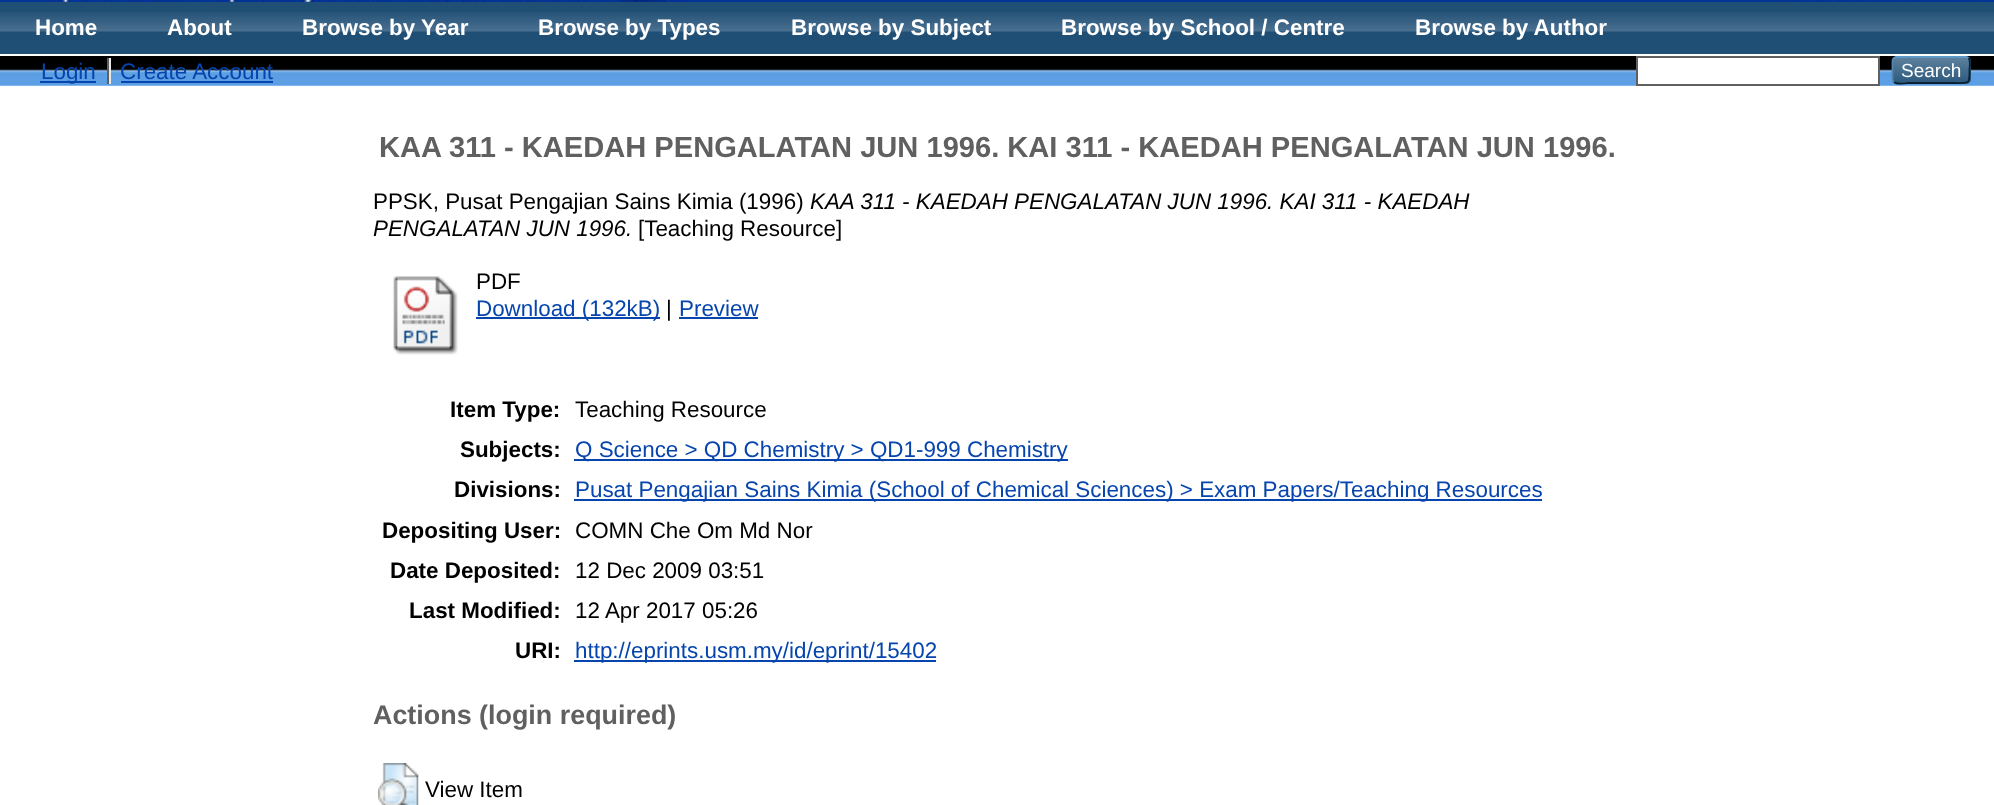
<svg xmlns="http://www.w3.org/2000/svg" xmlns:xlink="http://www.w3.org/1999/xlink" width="1994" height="805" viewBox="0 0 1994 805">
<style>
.cls-1{font:bold 22.4px Liberation Sans;fill:#ffffff}
.cls-2{font:22.4px Liberation Sans;fill:#0645ad}
.cls-3{font:19px Liberation Sans;fill:#ffffff}
.cls-4{font:bold 29.1px Liberation Sans;fill:#606060}
.cls-5{font:22.4px Liberation Sans;fill:#000000}
.cls-6{font:italic 22.4px Liberation Sans;fill:#000000}
.cls-7{font:bold 22.4px Liberation Sans;fill:#000000}
.cls-8{font:bold 26.9px Liberation Sans;fill:#606060}
</style>
<rect width="100%" height="100%" fill="#ffffff"/>
<image xlink:href="image0.png" x="0" y="0" width="1994" height="86"/>
<image xlink:href="image1.png" x="46" y="0" width="643" height="2"/>
<image xlink:href="image2.png" x="1764" y="0" width="220" height="2"/>
<rect fill="#204f76" x="0" y="2" width="1994" height="52"/>
<image xlink:href="image3.png" x="0" y="12" width="1994" height="20"/>
<rect fill="#ffffff" x="0" y="54" width="1994" height="2"/>
<rect fill="#606060" x="107" y="58" width="2" height="26"/>
<rect fill="#0645ad" x="40" y="81" width="56" height="2"/>
<rect fill="#e8e8e8" x="109" y="58" width="2" height="26"/>
<rect fill="#0645ad" x="121" y="81" width="152" height="2"/>
<rect fill="#ffffff" stroke="#606060" stroke-width="2" x="1637" y="57" width="242" height="28"/>
<rect fill="#1f4f76" x="1892" y="56" width="79" height="28" rx="5"/>
<image xlink:href="image4.png" x="1892" y="56" width="79" height="28"/>
<path fill="none" stroke="#5b97c7" stroke-width="1.8" d="M1894 58L1896.5 57H1965.5L1968.5 58"/>
<path fill="none" stroke="#0d2131" stroke-width="1.8" d="M1968.5 58C1971 60.5 1969.5 67 1969.5 70C1969.5 85 1970 83 1954 83H1908.5C1907.5 83 1897 85 1894 82"/>
<path fill="none" stroke="#5287b3" stroke-width="1.8" d="M1894 82C1893 81 1892.5 80 1892.5 79V61C1892.5 60 1893 59 1894 58"/>
<image xlink:href="image5.png" x="393" y="276" width="65" height="79"/>
<rect fill="#0645ad" x="476" y="317" width="184" height="2"/>
<rect fill="#0645ad" x="679" y="317" width="79" height="2"/>
<rect fill="#0645ad" x="574" y="459" width="494" height="2"/>
<rect fill="#0645ad" x="574" y="499" width="968" height="2"/>
<rect fill="#0645ad" x="574" y="660" width="362" height="2"/>
<image xlink:href="image6.png" x="378" y="763" width="41" height="42"/>
<text class="cls-1" x="35" y="35">Home</text>
<text class="cls-1" x="167" y="35">About</text>
<text class="cls-1" x="302" y="35">Browse by Year</text>
<text class="cls-1" x="538" y="35">Browse by Types</text>
<text class="cls-1" x="791" y="35">Browse by Subject</text>
<text class="cls-1" x="1061" y="35">Browse by School / Centre</text>
<text class="cls-1" x="1415" y="35">Browse by Author</text>
<text class="cls-2" x="41" y="79">Login</text>
<text class="cls-2" x="120" y="79">Create Account</text>
<text class="cls-3" x="1901" y="77">Search</text>
<text class="cls-4" x="379" y="157">KAA 311 - KAEDAH PENGALATAN JUN 1996. KAI 311 - KAEDAH PENGALATAN JUN 1996.</text>
<text class="cls-5" x="373" y="209">PPSK, Pusat Pengajian Sains Kimia (1996)</text>
<text class="cls-6" x="810" y="209">KAA 311 - KAEDAH PENGALATAN JUN 1996. KAI 311 - KAEDAH</text>
<text class="cls-6" x="373" y="236">PENGALATAN JUN 1996.</text>
<text class="cls-5" x="638" y="236">[Teaching Resource]</text>
<text class="cls-5" x="476" y="289">PDF</text>
<text class="cls-2" x="476" y="316">Download (132kB)</text>
<text class="cls-5" x="666" y="316">|</text>
<text class="cls-2" x="679" y="316">Preview</text>
<text class="cls-7" x="450" y="417">Item Type:</text>
<text class="cls-5" x="575" y="417">Teaching Resource</text>
<text class="cls-7" x="460" y="457">Subjects:</text>
<text class="cls-2" x="575" y="457">Q Science &gt; QD Chemistry &gt; QD1-999 Chemistry</text>
<text class="cls-7" x="454" y="497">Divisions:</text>
<text class="cls-2" x="575" y="497">Pusat Pengajian Sains Kimia (School of Chemical Sciences) &gt; Exam Papers/Teaching Resources</text>
<text class="cls-7" x="382" y="538">Depositing User:</text>
<text class="cls-5" x="575" y="538">COMN Che Om Md Nor</text>
<text class="cls-7" x="390" y="578">Date Deposited:</text>
<text class="cls-5" x="575" y="578">12 Dec 2009 03:51</text>
<text class="cls-7" x="409" y="618">Last Modified:</text>
<text class="cls-5" x="575" y="618">12 Apr 2017 05:26</text>
<text class="cls-7" x="515" y="658">URI:</text>
<text class="cls-2" x="575" y="658">http://eprints.usm.my/id/eprint/15402</text>
<text class="cls-8" x="373" y="724">Actions (login required)</text>
<text class="cls-5" x="425" y="797">View Item</text>
</svg>
